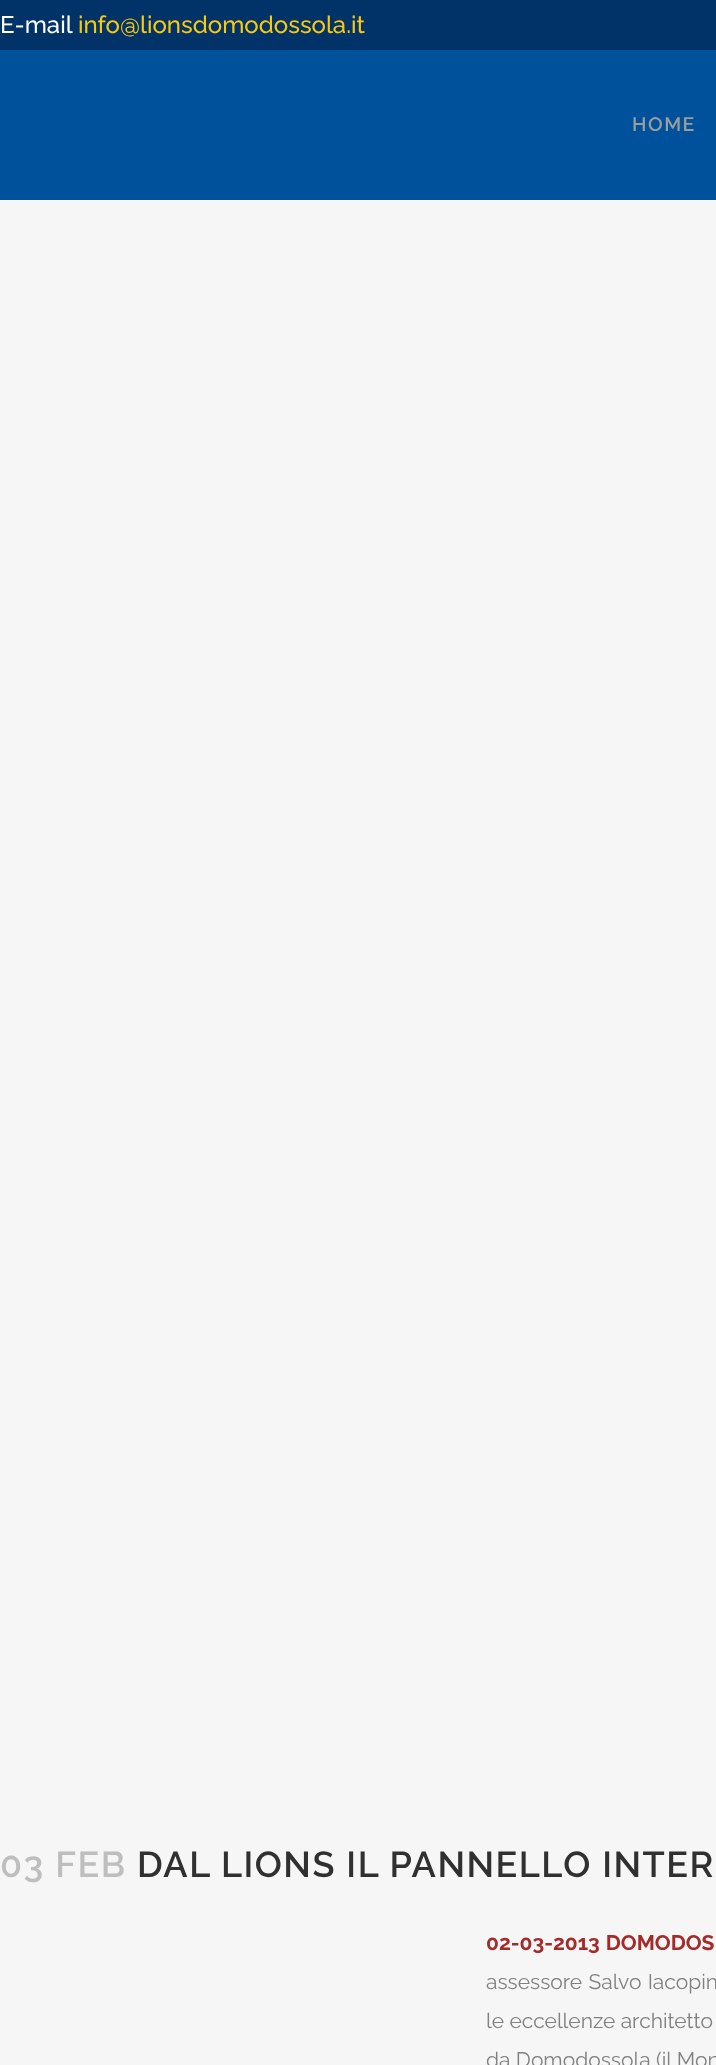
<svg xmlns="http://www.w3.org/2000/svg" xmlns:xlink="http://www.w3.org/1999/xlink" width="716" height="2065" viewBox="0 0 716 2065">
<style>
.cls-1{font:500 24px Raleway;fill:#ffffff}
.cls-2{font:500 24px Raleway;fill:#f9c910}
.cls-3{font:600 19.5px Raleway;letter-spacing:1.5px;fill:#9d9d9d}
.cls-4{font:600 36px Raleway;letter-spacing:1.5px;fill:#bebebe}
.cls-5{font:600 36px Raleway;letter-spacing:1.5px;fill:#303030}
.cls-6{font:bold 21px Raleway;fill:#a52a2a}
.cls-7{font:21px Raleway;fill:#818181}
</style>
<rect width="100%" height="100%" fill="#f6f6f6"/>
<rect fill="#023368" x="0" y="0" width="716" height="50"/>
<rect fill="#00519b" x="0" y="50" width="716" height="150"/>
<text class="cls-1" x="0" y="33">E-mail</text>
<text class="cls-2" x="78" y="33">info@lionsdomodossola.it</text>
<text class="cls-3" x="632" y="131">HOME</text>
<text class="cls-4" x="0" y="1877">03 FEB</text>
<text class="cls-5" x="137" y="1877">DAL LIONS IL PANNELLO INTER</text>
<text class="cls-6" x="486" y="1950" word-spacing="1">02-03-2013 DOMODOS</text>
<text class="cls-7"><tspan x="486" y="1989" word-spacing="1">assessore Salvo Iacopin</tspan><tspan x="486" y="2028">le eccellenze architetto</tspan><tspan x="486" y="2067">da Domodossola (il Mon</tspan></text>
</svg>
